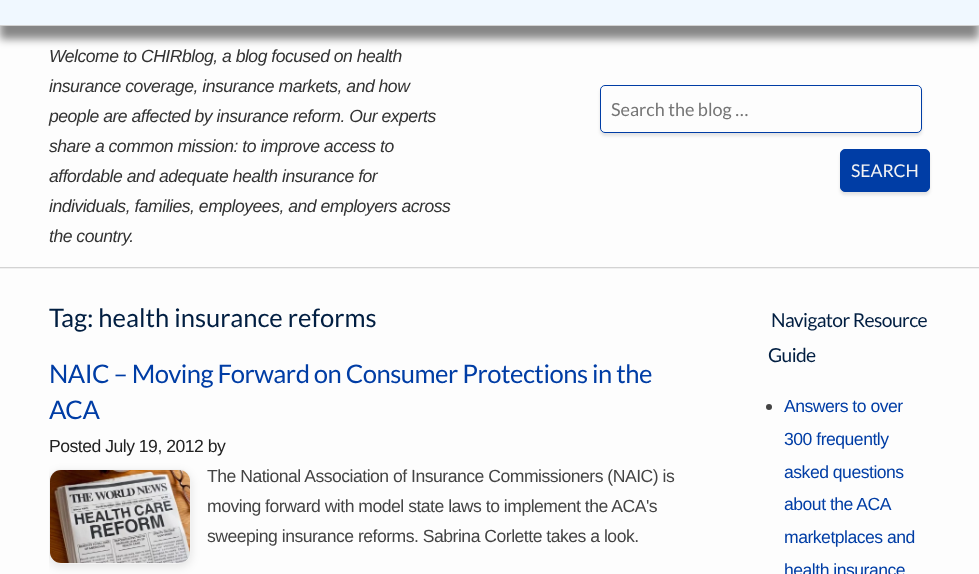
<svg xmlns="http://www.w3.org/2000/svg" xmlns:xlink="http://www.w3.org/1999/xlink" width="979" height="574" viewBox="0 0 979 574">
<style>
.cls-1{font:italic 17.6px Liberation Sans;letter-spacing:-0.5px;fill:#333333}
.cls-2{font:18px Lato;fill:#757575}
.cls-3{font:17.6px Lato;fill:#f3f3f3}
.cls-4{font:25.6px Lato;fill:#011e41}
.cls-5{font:25.6px Lato;letter-spacing:-0.5px;fill:#003da5}
.cls-6{font:17.6px Liberation Sans;letter-spacing:-0.5px;fill:#222222}
.cls-7{font:17.6px Liberation Sans;letter-spacing:-0.5px;fill:#444444}
.cls-8{font:19.25px Lato;letter-spacing:-0.6px;fill:#011e41}
.cls-9{font:17.6px Liberation Sans;letter-spacing:-0.5px;fill:#003da5}
</style>
<defs>
<clipPath id="clip1"><rect x="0" y="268" width="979" height="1"/></clipPath>
<clipPath id="clip2"><rect x="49" y="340" width="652" height="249"/></clipPath>
</defs>
<rect width="100%" height="100%" fill="#fdfdfd"/>
<rect fill="#000000" fill-opacity="0.47" filter="blur(4.5px)" x="0" y="-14" width="979" height="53"/>
<g clip-path="url(#clip1)">
<rect fill="#000000" fill-opacity="0.05" filter="blur(0.5px)" x="0" y="27" width="979" height="242"/>
</g>
<rect fill="#f0f8ff" x="0" y="0" width="979" height="25"/>
<rect fill="#d3d3d3" x="0" y="25" width="979" height="1"/>
<rect fill="#d3d3d3" x="0" y="267" width="979" height="1"/>
<rect fill="#000000" fill-opacity="0.1" filter="blur(1.5px)" x="600" y="88" width="322" height="48" rx="5"/>
<rect fill="#fdfdfd" stroke="#003da5" x="600.5" y="85.5" width="321" height="47" rx="4.5"/>
<rect fill="#000000" fill-opacity="0.1" filter="blur(1.5px)" x="840" y="152" width="90" height="43" rx="5"/>
<rect fill="#003da5" stroke="#003da5" x="840.5" y="149.5" width="89" height="42" rx="4.5"/>
<g clip-path="url(#clip2)">
<rect fill="#000000" fill-opacity="0.1" filter="blur(5px)" x="49" y="472" width="142" height="95" rx="12"/>
</g>
<rect fill="none" stroke="#f2f2f2" x="49.5" y="469.5" width="141" height="94" rx="11.5"/>
<image xlink:href="image0.png" x="50" y="470" width="140" height="93"/>
<circle fill="#444444" cx="769" cy="407" r="3"/>
<text class="cls-1"><tspan x="49" y="62">Welcome to CHIRblog, a blog focused on health</tspan><tspan x="49" y="92">insurance coverage, insurance markets, and how</tspan><tspan x="49" y="122">people are affected by insurance reform. Our experts</tspan><tspan x="49" y="152">share a common mission: to improve access to</tspan><tspan x="49" y="182">affordable and adequate health insurance for</tspan><tspan x="49" y="212">individuals, families, employees, and employers across</tspan><tspan x="49" y="242">the country.</tspan></text>
<text class="cls-2" x="611" y="116">Search the blog …</text>
<text class="cls-3" x="851" y="177">SEARCH</text>
<text class="cls-4" x="49" y="327">Tag: health insurance reforms</text>
<text class="cls-5"><tspan x="49" y="383">NAIC – Moving Forward on Consumer Protections in the</tspan><tspan x="49" y="419">ACA</tspan></text>
<text class="cls-6" x="49" y="452">Posted July 19, 2012 by</text>
<text class="cls-7"><tspan x="207" y="482">The National Association of Insurance Commissioners (NAIC) is</tspan><tspan x="207" y="512">moving forward with model state laws to implement the ACA's</tspan><tspan x="207" y="542">sweeping insurance reforms. Sabrina Corlette takes a look.</tspan></text>
<text class="cls-8" x="771" y="327">Navigator Resource</text>
<text class="cls-8" x="768" y="362">Guide</text>
<text class="cls-9"><tspan x="784" y="412">Answers to over</tspan><tspan x="784" y="445">300 frequently</tspan><tspan x="784" y="478">asked questions</tspan><tspan x="784" y="510">about the ACA</tspan><tspan x="784" y="543">marketplaces and</tspan><tspan x="784" y="576">health insurance</tspan></text>
</svg>
